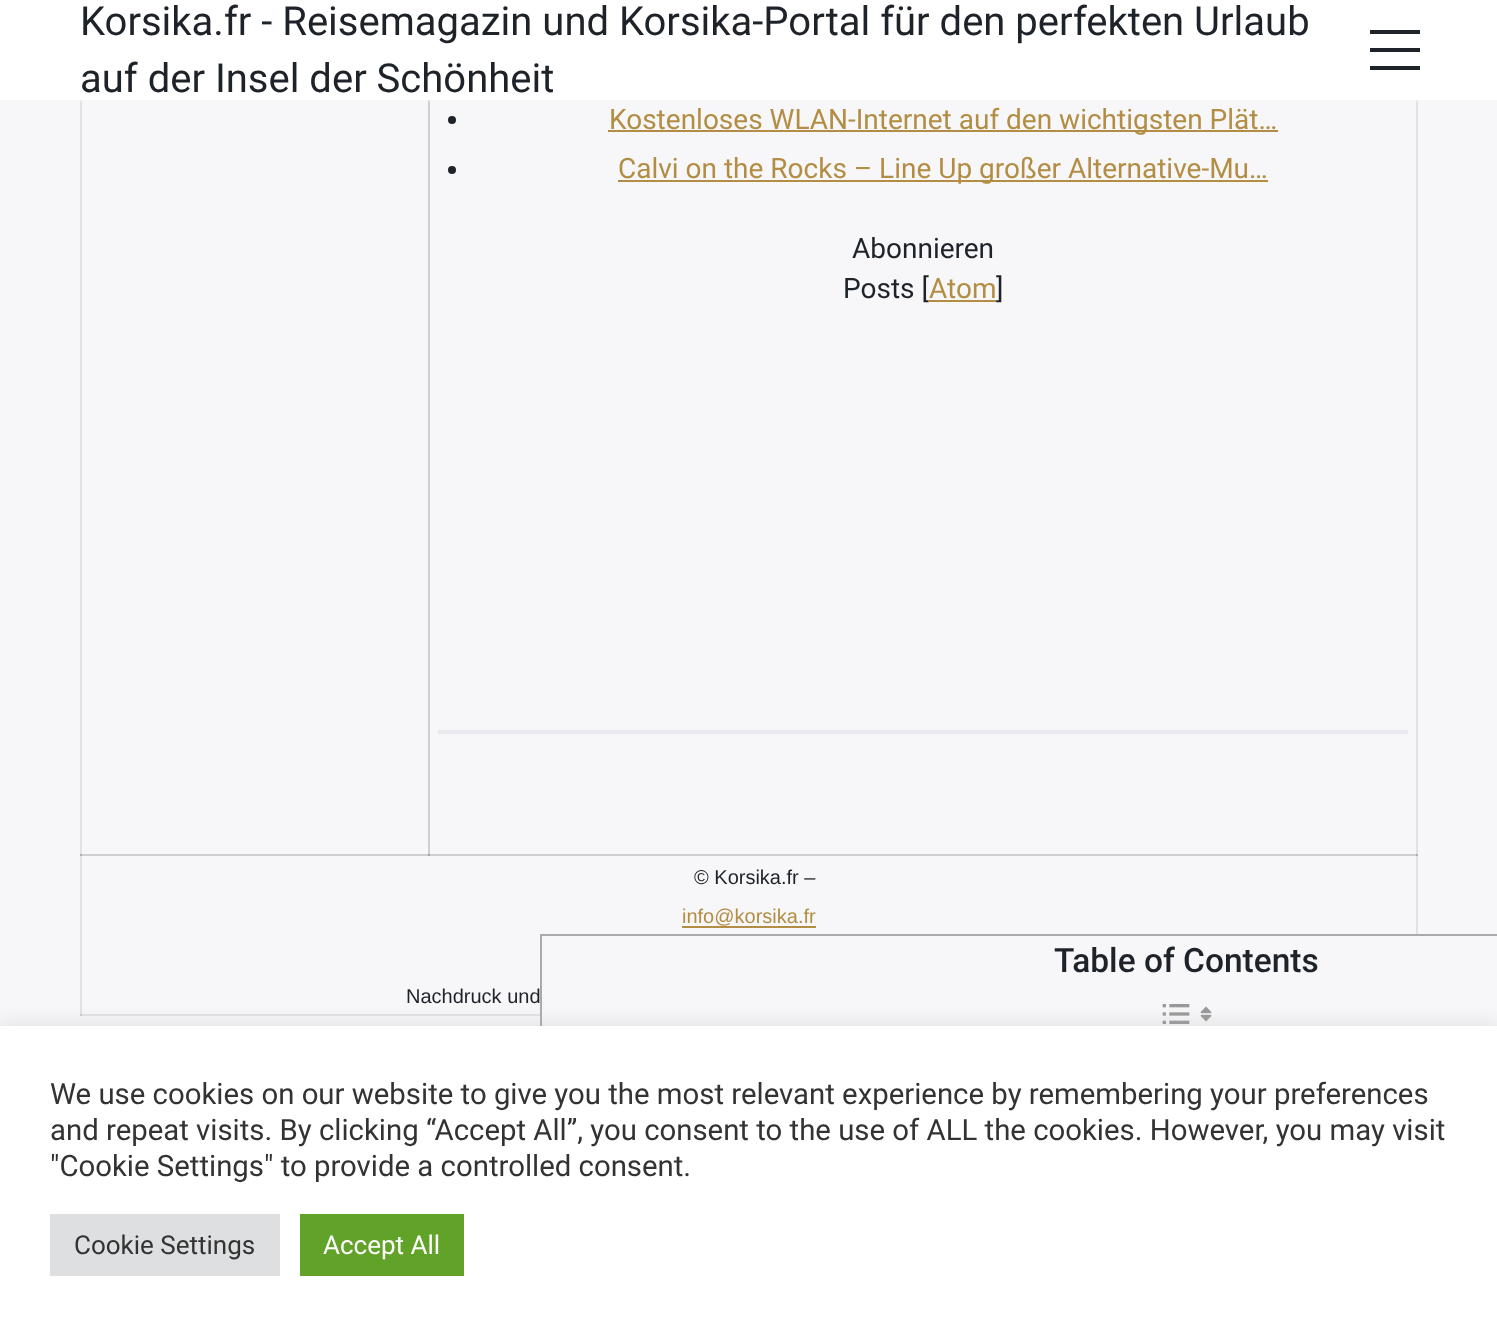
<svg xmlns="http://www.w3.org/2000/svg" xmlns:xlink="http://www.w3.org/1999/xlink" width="1497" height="1335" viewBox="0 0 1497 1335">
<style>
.cls-1{font:40px Roboto;fill:#1e2229}
.cls-2{font:28px Roboto;fill:#b28d43}
.cls-3{font:28px Roboto;fill:#1e2229}
.cls-4{font:500 33.5px Roboto;fill:#1e2229}
.cls-5{font:20px Liberation Sans;fill:#1e2229}
.cls-6{font:20px Liberation Sans;fill:#b28d43}
.cls-7{font:29.35px Roboto;fill:#333333}
.cls-8{font:26px Roboto;fill:#333333}
.cls-9{font:26px Roboto;fill:#ffffff}
</style>
<rect width="100%" height="100%" fill="#f7f7f9"/>
<rect fill="#e1e2e4" x="80" y="100" width="2" height="916"/>
<rect fill="#cecfd1" x="428" y="100" width="2" height="756"/>
<rect fill="#e1e2e4" x="1416" y="100" width="2" height="834"/>
<rect fill="#e1e2e4" x="80" y="1014" width="460" height="2"/>
<rect fill="#cecfd1" x="80" y="1014" width="2" height="2"/>
<rect fill="#f7f7f9" filter="blur(2px)" x="4" y="8" width="1490" height="92"/>
<rect fill="#ffffff" x="0" y="0" width="1497" height="100"/>
<rect fill="#1e2229" x="1370" y="48" width="50" height="4"/>
<rect fill="#1e2229" x="1370" y="30" width="50" height="4"/>
<rect fill="#1e2229" x="1370" y="66" width="50" height="4"/>
<circle fill="#1e2229" cx="452" cy="120" r="4"/>
<rect fill="#b28d43" x="608" y="130" width="670" height="2"/>
<circle fill="#1e2229" cx="452" cy="170" r="4"/>
<rect fill="#b28d43" x="618" y="180" width="650" height="2"/>
<rect fill="#e8e8ee" x="438" y="730" width="970" height="4"/>
<rect fill="#aaaaaa" x="540" y="934" width="957" height="2"/>
<rect fill="#aaaaaa" x="540" y="934" width="2" height="92"/>
<image xlink:href="image0.png" x="1162" y="1004" width="28" height="20"/>
<image xlink:href="image1.png" x="1200" y="1006" width="12" height="16"/>
<rect fill="#cecfd1" x="80" y="854" width="1338" height="2"/>
<rect fill="#9ea0a3" x="428" y="854" width="2" height="2"/>
<rect fill="#acaeb1" x="80" y="854" width="2" height="2"/>
<rect fill="#acaeb1" x="1416" y="854" width="2" height="2"/>
<rect fill="#b28d43" x="682" y="926" width="134" height="2"/>
<rect fill="#acabab" fill-opacity="0.3" filter="blur(10px)" x="0" y="1024" width="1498" height="310"/>
<rect fill="#ffffff" x="0" y="1026" width="1497" height="309"/>
<rect fill="#dedfe0" x="50" y="1214" width="230" height="62"/>
<rect fill="#61a229" x="300" y="1214" width="164" height="62"/>
<text class="cls-1"><tspan x="80" y="35">Korsika.fr - Reisemagazin und Korsika-Portal für den perfekten Urlaub</tspan><tspan x="80" y="92">auf der Insel der Schönheit</tspan></text>
<text class="cls-2" x="609" y="129">Kostenloses WLAN-Internet auf den wichtigsten Plät…</text>
<text class="cls-2" x="618" y="178">Calvi on the Rocks – Line Up großer Alternative-Mu…</text>
<text class="cls-3" x="852" y="258">Abonnieren</text>
<text class="cls-3" x="843" y="298">Posts [</text>
<text class="cls-2" x="929" y="298">Atom</text>
<rect fill="#b28d43" x="928" y="300" width="68" height="2"/>
<text class="cls-3" x="996" y="298">]</text>
<text class="cls-4" x="1054" y="972">Table of Contents</text>
<text class="cls-5" x="694" y="884">© Korsika.fr –</text>
<text class="cls-6" x="682" y="923">info@korsika.fr</text>
<text class="cls-5" x="406" y="1003">Nachdruck und</text>
<text class="cls-7"><tspan x="50" y="1104">We use cookies on our website to give you the most relevant experience by remembering your preferences</tspan><tspan x="50" y="1140">and repeat visits. By clicking “Accept All”, you consent to the use of ALL the cookies. However, you may visit</tspan><tspan x="50" y="1176">"Cookie Settings" to provide a controlled consent.</tspan></text>
<text class="cls-8" x="74" y="1254">Cookie Settings</text>
<text class="cls-9" x="323" y="1254">Accept All</text>
</svg>
